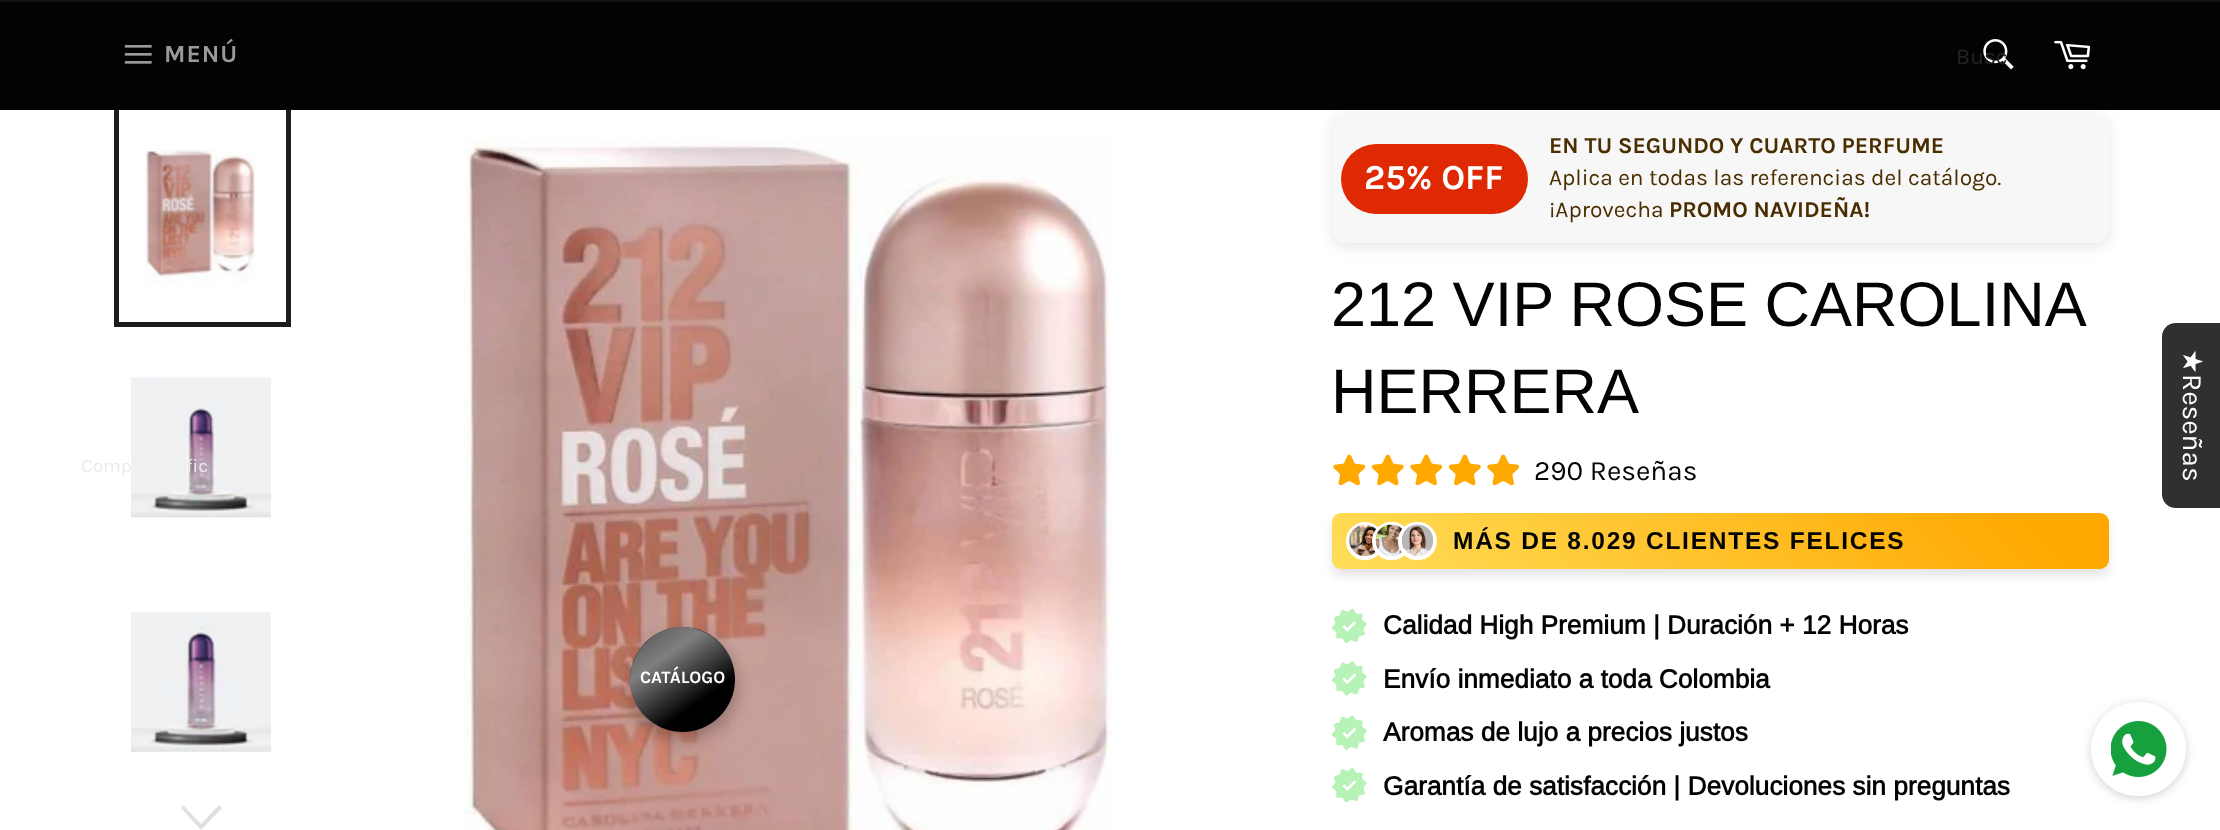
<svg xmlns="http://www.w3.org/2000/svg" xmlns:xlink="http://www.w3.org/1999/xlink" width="2220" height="830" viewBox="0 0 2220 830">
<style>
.cls-1{font:bold 24.5px Karla;letter-spacing:1px;fill:#9a9a9a}
.cls-2{font:22.75px Karla;fill:#232323}
.cls-3{font:19px Karla;fill:#ece9ed}
.cls-4{font:bold 35px Karla;fill:#ffffff}
.cls-5{font:bold 22.75px Karla;fill:#4a2e00}
.cls-6{font:22.75px Karla;fill:#4a2e00}
.cls-7{font:63px Arimo;fill:#030303}
.cls-8{font:28px Karla;fill:#030303}
.cls-9{font:bold 24.5px Liberation Sans;letter-spacing:1.75px;fill:#030303}
.cls-10{font:bold 26.25px Arimo;fill:#030303}
.cls-11{font:28px DejaVu Sans;fill:#ffffff}
.cls-12{font:28px Karla;fill:#ffffff}
.cls-13{font:bold 17.5px Karla;fill:#ffffff}
</style>
<defs>
<linearGradient id="g1" gradientUnits="userSpaceOnUse" x1="1512" y1="749" x2="1929" y2="333"><stop offset="0" stop-color="#ffde59"/><stop offset="0.9" stop-color="#ffa800"/></linearGradient>
<linearGradient id="g2" gradientUnits="userSpaceOnUse" x1="600" y1="562" x2="765" y2="796"><stop offset="0" stop-color="#ffffff" stop-opacity="0"/><stop offset="0.4" stop-color="#ffffff" stop-opacity="0.5"/><stop offset="0.6" stop-color="#ffffff" stop-opacity="0"/></linearGradient>
</defs>
<rect width="100%" height="100%" fill="#ffffff"/>
<image xlink:href="image3.png" x="144" y="149" width="111" height="134"/>
<rect fill="none" stroke="#1d1d1d" stroke-width="5" x="116.5" y="102.5" width="172" height="222"/>
<rect fill="#000000" fill-opacity="0.1" filter="blur(7px)" x="1332" y="117" width="777" height="130" rx="14"/>
<rect fill="#030303" x="0" y="2" width="2220" height="108"/>
<rect fill="#101010" x="0" y="0" width="2220" height="2"/>
<image xlink:href="image0.png" x="124" y="45" width="28" height="19"/>
<image xlink:href="image1.png" x="1983" y="39" width="31" height="31"/>
<image xlink:href="image2.png" x="2054" y="40" width="37" height="30"/>
<image xlink:href="image4.png" x="131" y="377" width="140" height="141"/>
<image xlink:href="image5.png" x="131" y="612" width="140" height="140"/>
<path fill="#e0e0e0" d="M219 805L222 808L201 830L181 808L183 805L201 824Z"/>
<image xlink:href="image6.png" x="463" y="139" width="649" height="691"/>
<rect fill="#f7f7f7" x="1332" y="114" width="777" height="129" rx="14"/>
<rect fill="#de2902" x="1341" y="144" width="187" height="70" rx="35"/>
<image xlink:href="image7.png" x="1333" y="454" width="33" height="32"/>
<image xlink:href="image8.png" x="1371" y="454" width="33" height="32"/>
<image xlink:href="image7.png" x="1410" y="454" width="33" height="32"/>
<image xlink:href="image8.png" x="1448" y="454" width="33" height="32"/>
<image xlink:href="image7.png" x="1487" y="454" width="33" height="32"/>
<rect fill="#000000" fill-opacity="0.1" filter="blur(5px)" x="1332" y="520" width="777" height="56" rx="9"/>
<rect fill="url(#g1)" x="1332" y="513" width="777" height="56" rx="9"/>
<circle fill="none" stroke="#ffffff" stroke-width="4" cx="1365" cy="541" r="17"/>
<image xlink:href="image9.png" x="1349" y="524" width="30" height="32"/>
<rect fill="none" stroke="#ffffff" stroke-width="4" x="1374" y="524" width="35" height="34" rx="17"/>
<image xlink:href="image10.png" x="1375" y="524" width="30" height="32"/>
<rect fill="none" stroke="#ffffff" stroke-width="4" x="1400" y="524" width="35" height="34" rx="17"/>
<image xlink:href="image11.png" x="1401" y="524" width="33" height="32"/>
<image xlink:href="image12.png" x="1331" y="608" width="36" height="36"/>
<image xlink:href="image13.png" x="1331" y="661" width="36" height="35"/>
<image xlink:href="image14.png" x="1331" y="715" width="36" height="36"/>
<image xlink:href="image15.png" x="1331" y="767" width="36" height="36"/>
<path fill="#303030" d="M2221 323V508H2176C2168 508 2162 502 2162 494V337C2162 329 2168 323 2176 323Z"/>
<rect fill="#000000" fill-opacity="0.3" filter="blur(9px)" x="630" y="634" width="105" height="105" rx="52.5"/>
<circle fill="#000000" cx="682.5" cy="679.5" r="52.5"/>
<rect fill="#1b1b1b" fill-opacity="0.2" filter="blur(5px)" x="2091" y="704" width="95" height="94" rx="47"/>
<rect fill="#ffffff" stroke="#ffffff" stroke-width="2" x="2092" y="703" width="93" height="92" rx="46"/>
<image xlink:href="image16.png" x="2111" y="721" width="56" height="56"/>
<text class="cls-1" x="164" y="62">MENÚ</text>
<text class="cls-2" x="1956" y="64">Busc</text>
<text class="cls-3" x="81" y="472">Comp</text>
<text class="cls-3" x="186" y="472">fic</text>
<text class="cls-4" x="1364" y="189">25% OFF</text>
<text class="cls-5" x="1549" y="153">EN TU SEGUNDO Y CUARTO PERFUME</text>
<text class="cls-6"><tspan x="1549" y="185">Aplica en todas las referencias del catálogo.</tspan><tspan x="1549" y="217">¡Aprovecha</tspan></text>
<text class="cls-5" x="1669" y="217">PROMO NAVIDEÑA!</text>
<text class="cls-7"><tspan x="1331" y="326" word-spacing="-1">212 VIP ROSE CAROLINA</tspan><tspan x="1331" y="413">HERRERA</tspan></text>
<text class="cls-8" x="1534" y="480">290 Reseñas</text>
<text class="cls-9" x="1453" y="549">MÁS DE 8.029 CLIENTES FELICES</text>
<text class="cls-10" x="1383" y="634">Calidad High Premium | Duración + 12 Horas</text>
<text class="cls-10" x="1383" y="688">Envío inmediato a toda Colombia</text>
<text class="cls-10" x="1383" y="741">Aromas de lujo a precios justos</text>
<text class="cls-10" x="1383" y="795">Garantía de satisfacción | Devoluciones sin preguntas</text>
<text class="cls-11" x="2183" y="349" transform="rotate(90 2183 349)">★</text>
<text class="cls-12" x="2183" y="374" transform="rotate(90 2183 374)">Reseñas</text>
<text class="cls-13" x="640" y="683">CATÁLOGO</text>
<path fill="url(#g2)" d="M682 627C654 627 630 651 630 680C630 708 654 732 682 732C711 732 735 708 735 680C735 651 711 627 682 627Z"/>
</svg>
